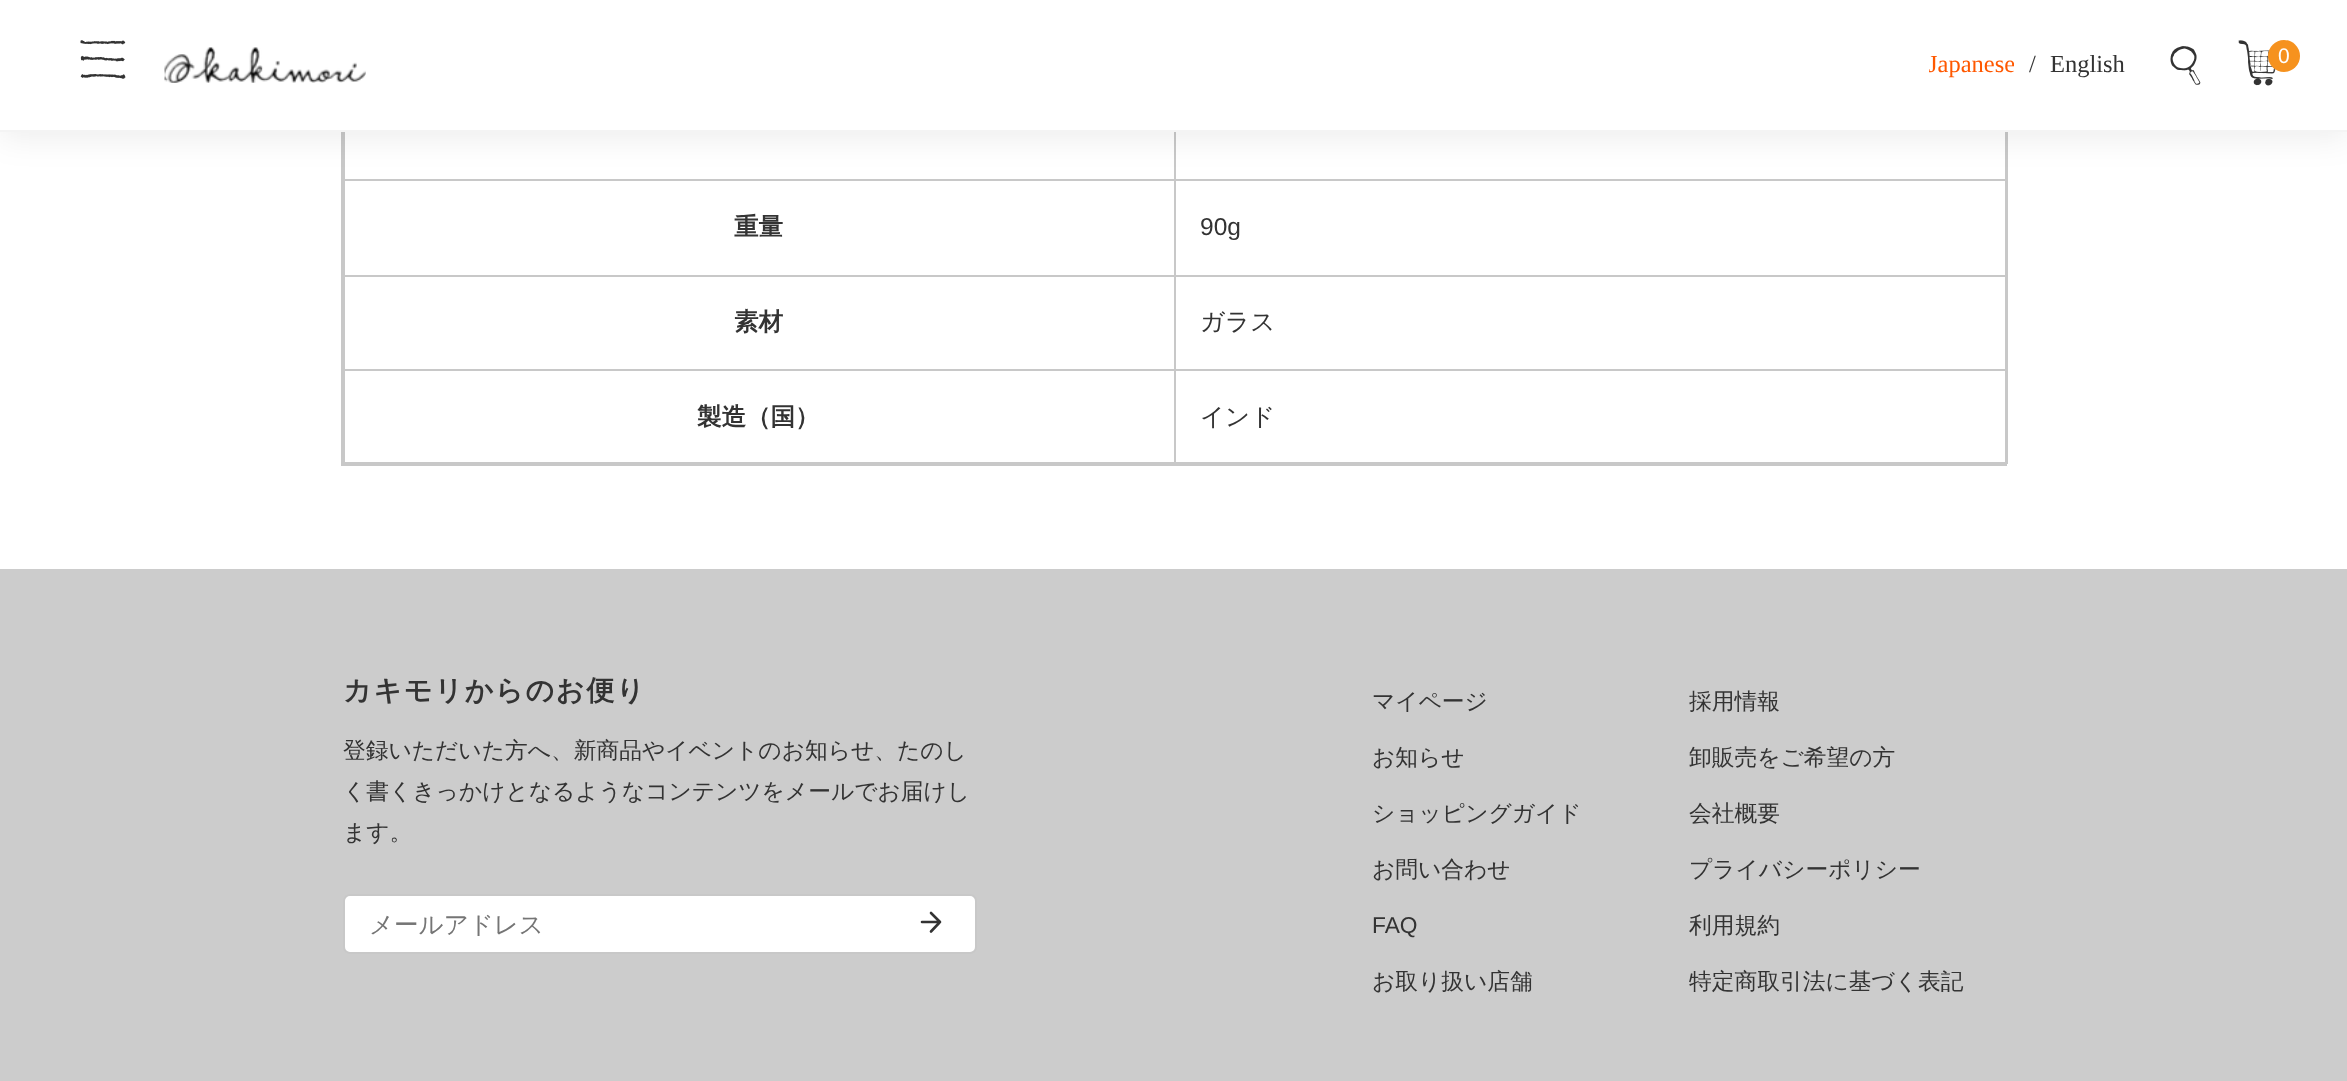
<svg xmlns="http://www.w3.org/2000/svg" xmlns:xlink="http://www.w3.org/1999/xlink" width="2347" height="1081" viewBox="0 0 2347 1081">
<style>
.cls-1{font:24.5px Liberation Serif;fill:#ff5800}
.cls-2{font:24.5px Liberation Serif;fill:#333333}
.cls-3{font:21px Liberation Sans;fill:#ffffff}
.cls-4{font:bold 24.5px WenQuanYi Zen Hei;fill:#333333}
.cls-5{font:24.5px Liberation Sans;fill:#333333}
.cls-6{font:500 24.5px WenQuanYi Zen Hei;fill:#333333}
.cls-7{font:bold 28px WenQuanYi Zen Hei;letter-spacing:1.75px;fill:#333333}
.cls-8{font:500 22.75px WenQuanYi Zen Hei;fill:#333333}
.cls-9{font:500 24.5px WenQuanYi Zen Hei;fill:#757575}
.cls-10{font:22.75px Liberation Sans;fill:#333333}
</style>
<defs>
<clipPath id="clip1"><rect x="1929" y="26" width="85" height="77"/></clipPath>
</defs>
<rect width="100%" height="100%" fill="#ffffff"/>
<rect fill="none" stroke="#c8c8c8" stroke-width="2" x="342" y="-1" width="1664" height="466"/>
<rect fill="#c8c8c8" x="1174" y="179" width="833" height="2"/>
<rect fill="#c8c8c8" x="1174" y="275" width="833" height="2"/>
<rect fill="#c8c8c8" x="1174" y="369" width="833" height="2"/>
<rect fill="#c8c8c8" x="1174" y="462" width="833" height="2"/>
<rect fill="#c8c8c8" x="1174" y="369" width="2" height="95"/>
<rect fill="#c8c8c8" x="343" y="369" width="833" height="2"/>
<rect fill="#c8c8c8" x="1174" y="275" width="2" height="96"/>
<rect fill="#c8c8c8" x="343" y="275" width="833" height="2"/>
<rect fill="#c8c8c8" x="1174" y="179" width="2" height="98"/>
<rect fill="#c8c8c8" x="343" y="179" width="833" height="2"/>
<rect fill="#c8c8c8" x="1174" y="132" width="2" height="48"/>
<rect fill="#c8c8c8" x="343" y="462" width="833" height="2"/>
<rect fill="#c8c8c8" x="343" y="369" width="2" height="95"/>
<rect fill="#c8c8c8" x="343" y="275" width="2" height="96"/>
<rect fill="#c8c8c8" x="343" y="132" width="2" height="145"/>
<rect fill="#c8c8c8" x="2007" y="132" width="1" height="332"/>
<rect fill="#000000" fill-opacity="0.07" filter="blur(16px)" x="0" y="7" width="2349" height="131"/>
<rect fill="#ffffff" x="0" y="0" width="2347" height="130"/>
<rect fill="#f4f4f4" x="0" y="130" width="2347" height="2"/>
<image xlink:href="image0.png" x="80" y="40" width="46" height="39"/>
<image xlink:href="image1.png" x="164" y="47" width="202" height="36"/>
<image xlink:href="image2.png" x="2170" y="46" width="31" height="39"/>
<image xlink:href="image3.png" x="2238" y="40" width="38" height="46"/>
<circle fill="#f6921e" cx="2284" cy="56" r="16"/>
<rect fill="#cccccc" x="0" y="569" width="2347" height="512"/>
<rect fill="#ffffff" stroke="#c8c8c8" stroke-width="2" x="344" y="895" width="632" height="58" rx="6"/>
<path fill="none" stroke="#333333" stroke-width="2.6" stroke-linecap="round" stroke-linejoin="round" d="M922 922H940M931 913L940 922L931 931.5"/>
<g clip-path="url(#clip1)">
<text class="cls-1" x="1928" y="72">Japanese</text>
</g>
<text class="cls-2" x="2029" y="72">/</text>
<text class="cls-2" x="2050" y="72">English</text>
<text class="cls-3" x="2278" y="63">0</text>
<text class="cls-4" x="734" y="235">重量</text>
<text class="cls-5" x="1200" y="235">90g</text>
<text class="cls-4" x="734" y="330">素材</text>
<text class="cls-6" x="1200" y="330">ガラス</text>
<text class="cls-4" x="697" y="425">製造（国）</text>
<text class="cls-6" x="1200" y="425">インド</text>
<text class="cls-7" x="343" y="700">カキモリからのお便り</text>
<text class="cls-8"><tspan x="343" y="758">登録いただいた方へ、新商品やイベントのお知らせ、たのし</tspan><tspan x="343" y="799">く書くきっかけとなるようなコンテンツをメールでお届けし</tspan><tspan x="343" y="840">ます。</tspan></text>
<text class="cls-9" x="369" y="933">メールアドレス</text>
<text class="cls-8" x="1372" y="709">マイページ</text>
<text class="cls-8" x="1372" y="765">お知らせ</text>
<text class="cls-8" x="1372" y="821">ショッピングガイド</text>
<text class="cls-8" x="1372" y="877">お問い合わせ</text>
<text class="cls-10" x="1372" y="933">FAQ</text>
<text class="cls-8" x="1372" y="989">お取り扱い店舗</text>
<text class="cls-8" x="1689" y="709">採用情報</text>
<text class="cls-8" x="1689" y="765">卸販売をご希望の方</text>
<text class="cls-8" x="1689" y="821">会社概要</text>
<text class="cls-8" x="1689" y="877">プライバシーポリシー</text>
<text class="cls-8" x="1689" y="933">利用規約</text>
<text class="cls-8" x="1689" y="989">特定商取引法に基づく表記</text>
</svg>
